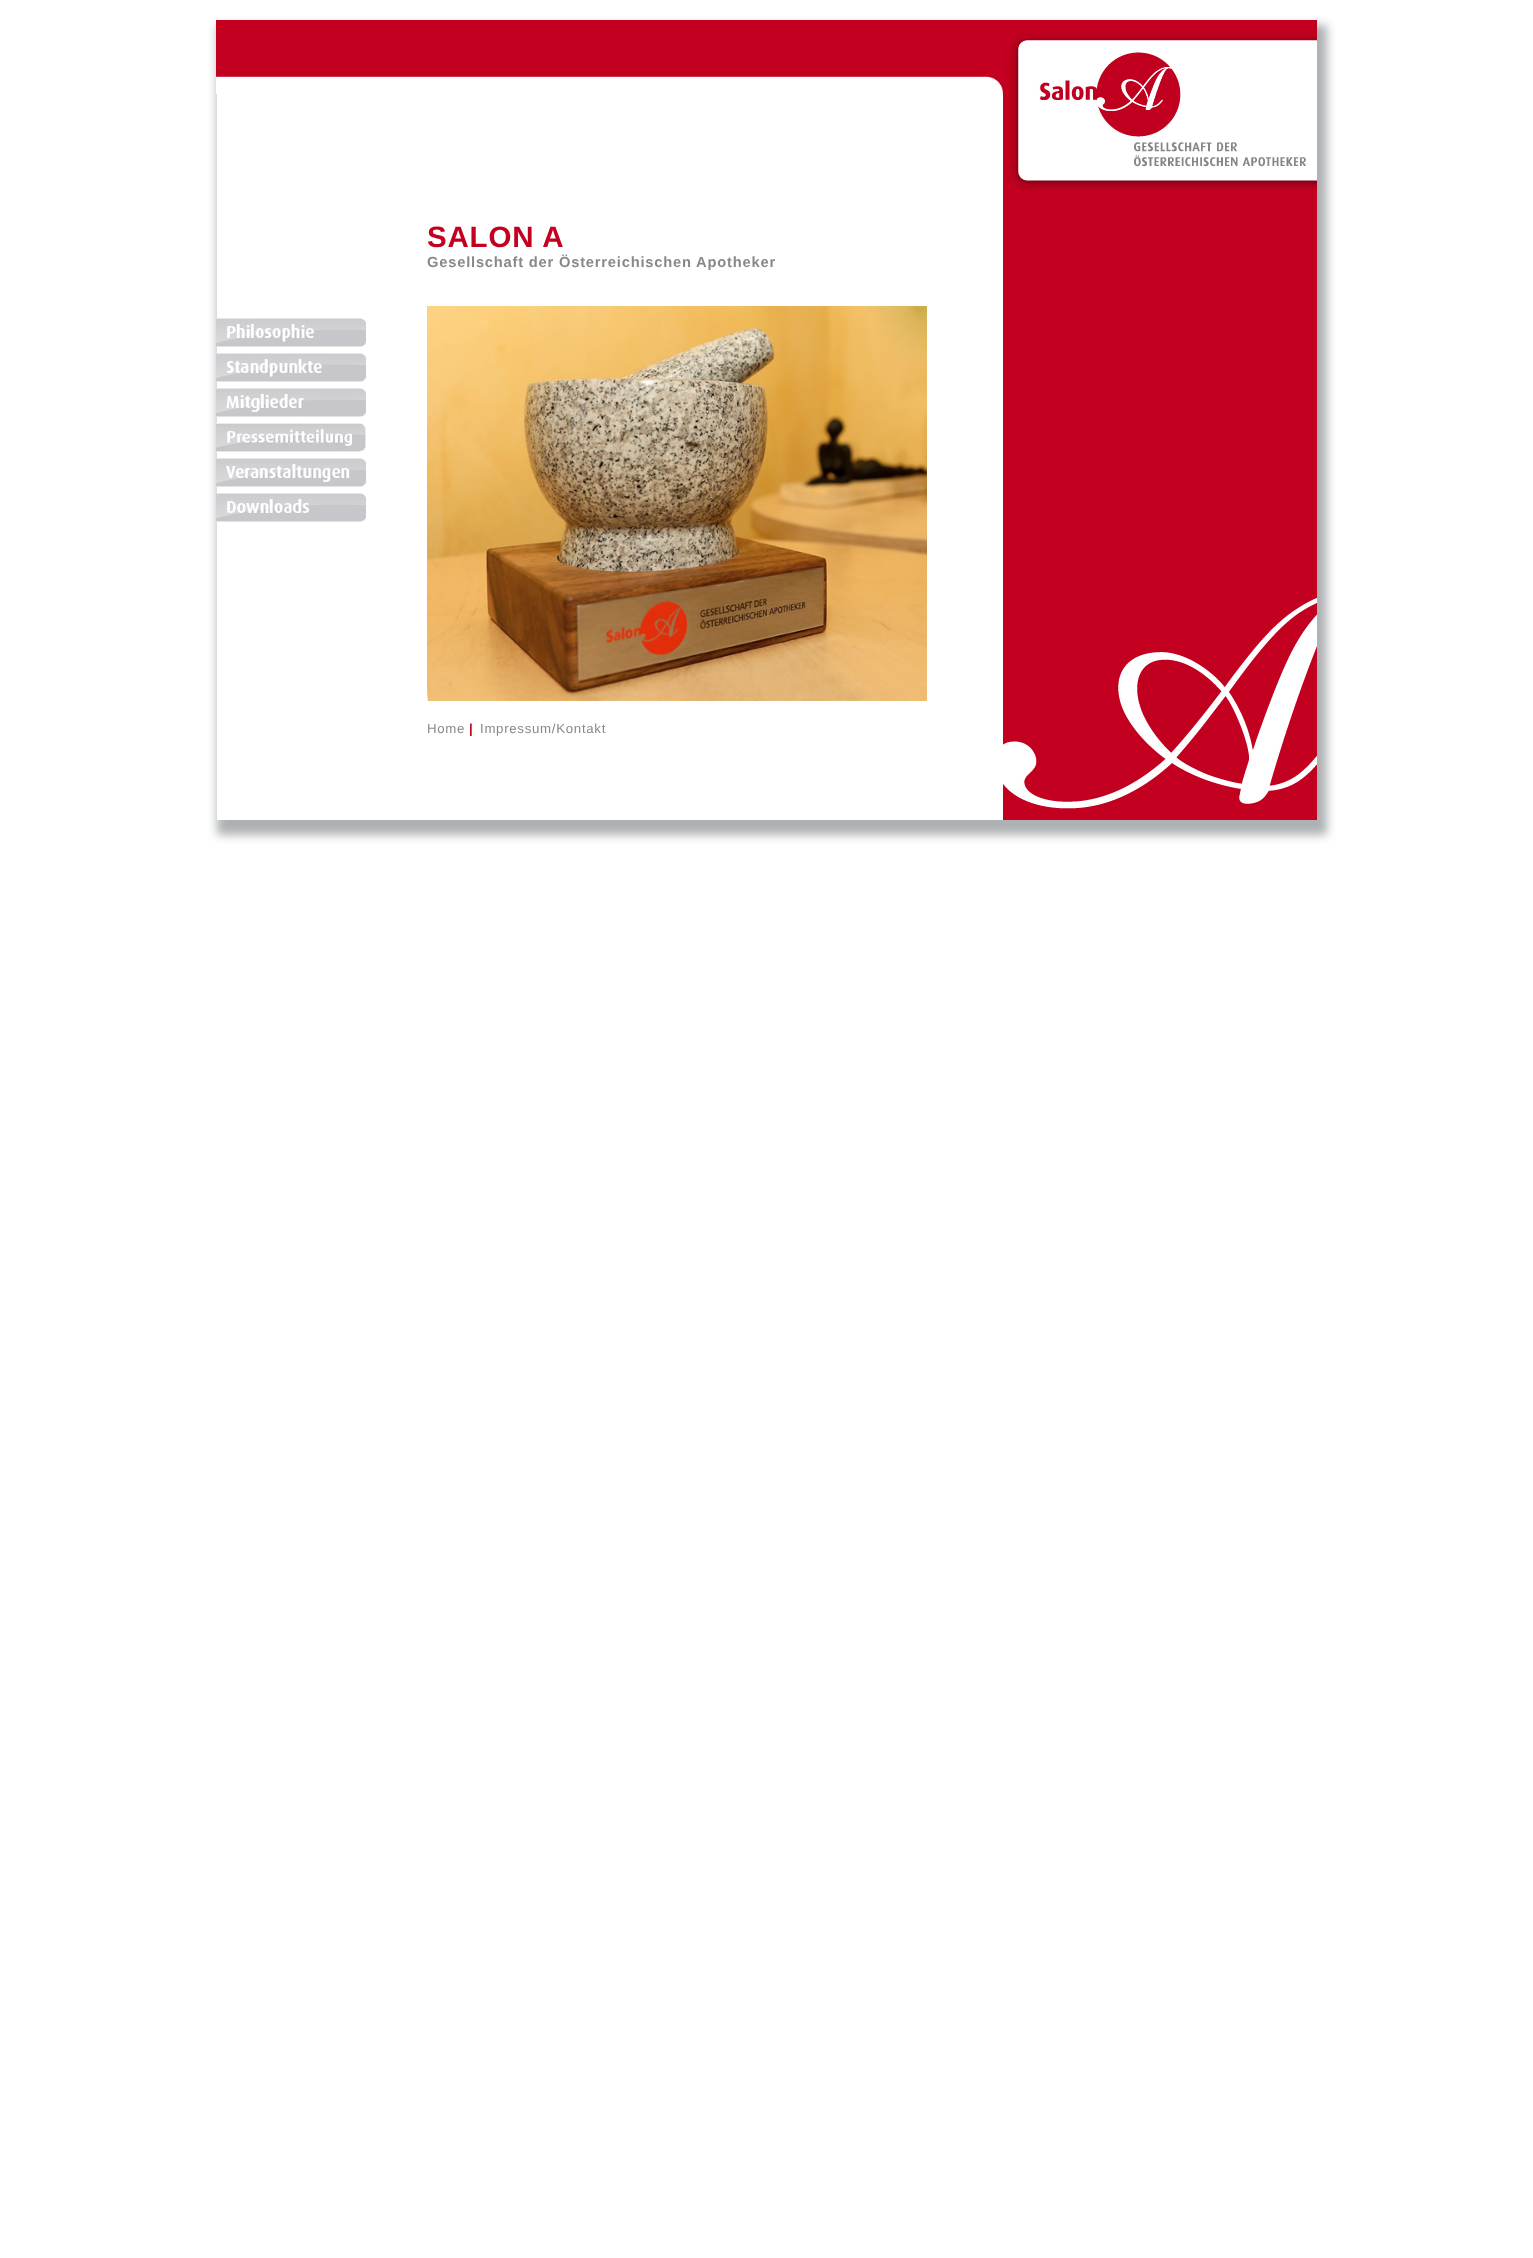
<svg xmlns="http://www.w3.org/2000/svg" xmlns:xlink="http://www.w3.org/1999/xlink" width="1533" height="2258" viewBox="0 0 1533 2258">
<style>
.cls-1{font:bold 29.5px Liberation Sans;letter-spacing:0.8px;fill:#c30020}
.cls-2{font:bold 14.7px Liberation Sans;letter-spacing:0.8px;fill:#87888a}
.cls-3{font:13.25px Liberation Sans;letter-spacing:0.7px;fill:#87888a}
.cls-4{font:bold 13.25px Liberation Sans;letter-spacing:0.7px;fill:#c00718}
</style>
<defs>
<clipPath id="clip1"><path d="M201 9H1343V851H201ZM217 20H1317V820H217Z" clip-rule="evenodd"/></clipPath>
</defs>
<rect width="100%" height="100%" fill="#ffffff"/>
<g clip-path="url(#clip1)">
<rect fill="#aeb1b3" filter="blur(5px)" x="217" y="25" width="1110" height="810"/>
</g>
<image xlink:href="image0.png" x="216" y="20" width="787" height="74"/>
<image xlink:href="image1.png" x="216" y="318" width="150" height="29"/>
<image xlink:href="image2.png" x="216" y="353" width="150" height="29"/>
<image xlink:href="image3.png" x="216" y="388" width="150" height="29"/>
<image xlink:href="image4.png" x="216" y="423" width="150" height="29"/>
<image xlink:href="image5.png" x="216" y="458" width="150" height="29"/>
<image xlink:href="image6.png" x="216" y="493" width="150" height="29"/>
<image xlink:href="image7.png" x="1003" y="20" width="314" height="800"/>
<image xlink:href="image8.png" x="427" y="306" width="500" height="395"/>
<text class="cls-1" x="427" y="247">SALON A</text>
<text class="cls-2" x="427" y="267">Gesellschaft der Österreichischen Apotheker</text>
<text class="cls-3" x="427" y="733">Home</text>
<text class="cls-4" x="469" y="733">|</text>
<text class="cls-3" x="480" y="733">Impressum/Kontakt</text>
</svg>
